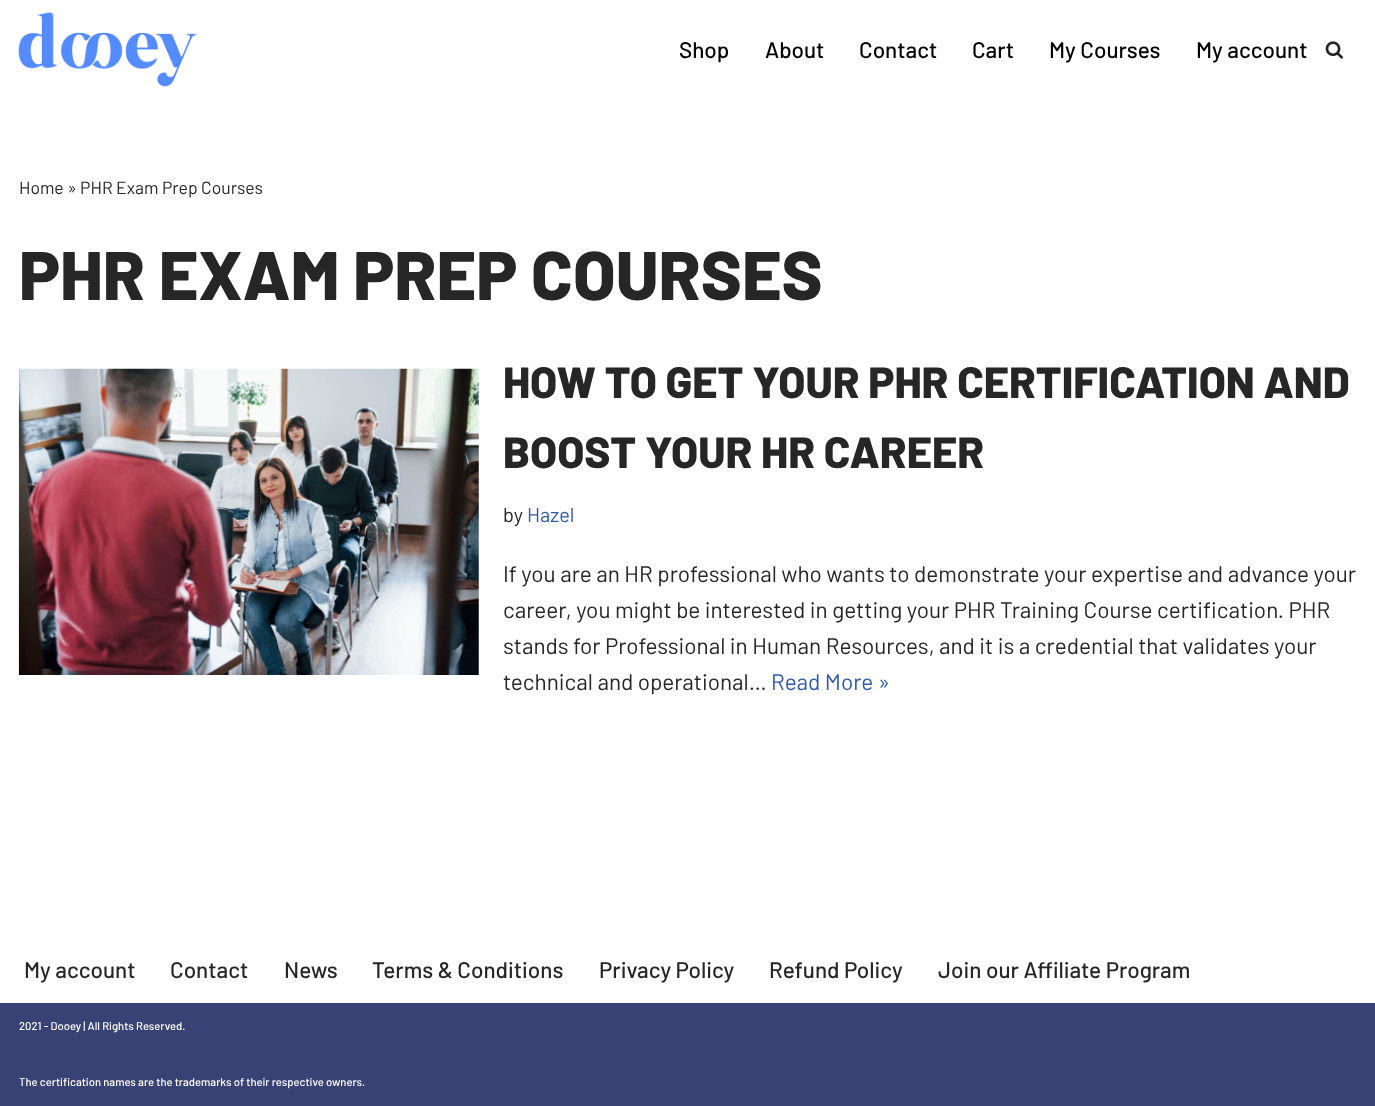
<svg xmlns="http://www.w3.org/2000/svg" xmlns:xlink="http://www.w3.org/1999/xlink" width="1375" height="1106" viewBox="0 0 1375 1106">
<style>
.cls-1{font:500 22.5px Barlow;fill:#000000}
.cls-2{font:17.5px Barlow;fill:#272626}
.cls-3{font:800 68.75px Barlow;fill:#272626}
.cls-4{font:800 43.75px Barlow;fill:#272626}
.cls-5{font:20px Barlow;fill:#272626}
.cls-6{font:20px Barlow;fill:#2f5aae}
.cls-7{font:22.5px Barlow;fill:#272626}
.cls-8{font:22.5px Barlow;fill:#2f5aae}
.cls-9{font:500 22.5px Barlow;fill:#272626}
.cls-10{font:500 11.25px Barlow;fill:#ffffff}
</style>
<rect width="100%" height="100%" fill="#ffffff"/>
<rect fill="#000000" fill-opacity="0.1" filter="blur(2px)" x="0" y="-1" width="1375" height="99"/>
<rect fill="#ffffff" x="0" y="0" width="1375" height="99"/>
<image xlink:href="image0.png" x="18" y="12" width="179" height="75"/>
<image xlink:href="image1.png" x="1325" y="41" width="19" height="18"/>
<image xlink:href="image2.png" x="18" y="368" width="461" height="307"/>
<rect fill="#394274" x="0" y="1003" width="1375" height="103"/>
<text class="cls-1" x="679" y="58">Shop</text>
<text class="cls-1" x="765" y="58">About</text>
<text class="cls-1" x="859" y="58">Contact</text>
<text class="cls-1" x="972" y="58">Cart</text>
<text class="cls-1" x="1049" y="58">My Courses</text>
<text class="cls-1" x="1196" y="58">My account</text>
<text class="cls-2" x="19" y="194">Home » PHR Exam Prep Courses</text>
<text class="cls-3" x="19" y="300">PHR EXAM PREP COURSES</text>
<text class="cls-4"><tspan x="503" y="398">HOW TO GET YOUR PHR CERTIFICATION AND</tspan><tspan x="503" y="468">BOOST YOUR HR CAREER</tspan></text>
<text class="cls-5" x="503" y="522">by</text>
<text class="cls-6" x="527" y="522">Hazel</text>
<text class="cls-7"><tspan x="503" y="582">If you are an HR professional who wants to demonstrate your expertise and advance your</tspan><tspan x="503" y="618">career, you might be interested in getting your PHR Training Course certification. PHR</tspan><tspan x="503" y="654">stands for Professional in Human Resources, and it is a credential that validates your</tspan><tspan x="503" y="690">technical and operational…</tspan></text>
<text class="cls-8" x="771" y="690">Read More »</text>
<text class="cls-9" x="24" y="978">My account</text>
<text class="cls-9" x="170" y="978">Contact</text>
<text class="cls-9" x="284" y="978">News</text>
<text class="cls-9" x="372" y="978">Terms &amp; Conditions</text>
<text class="cls-9" x="599" y="978">Privacy Policy</text>
<text class="cls-9" x="769" y="978">Refund Policy</text>
<text class="cls-9" x="938" y="978">Join our Affiliate Program</text>
<text class="cls-10" x="19" y="1030">2021 - Dooey | All Rights Reserved.</text>
<text class="cls-10" x="19" y="1086">The certification names are the trademarks of their respective owners.</text>
</svg>
